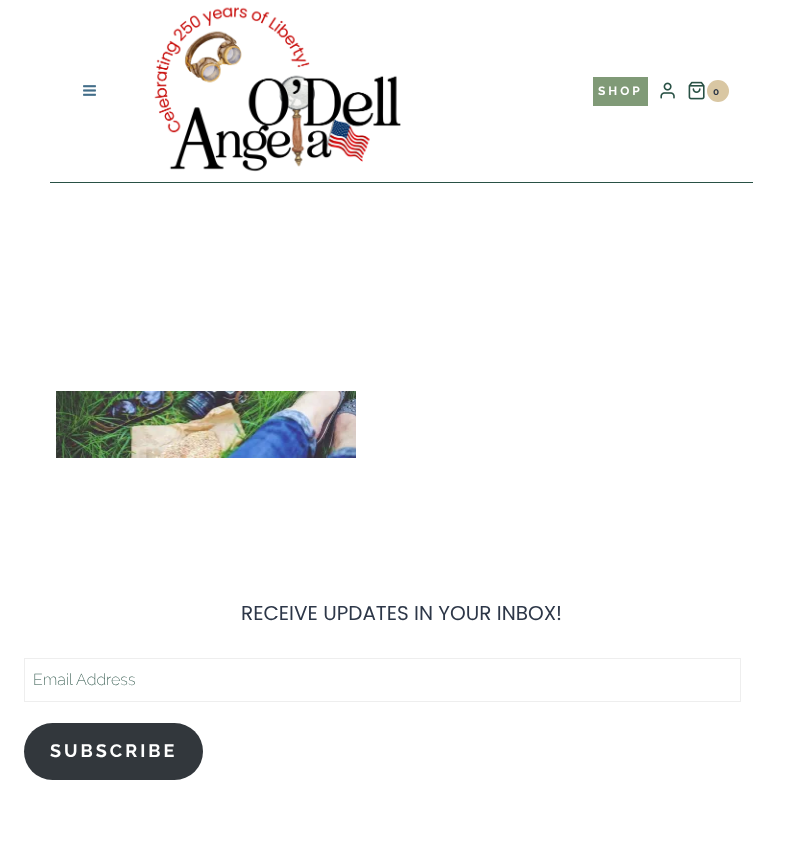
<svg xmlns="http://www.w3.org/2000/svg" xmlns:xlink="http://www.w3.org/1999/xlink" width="803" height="856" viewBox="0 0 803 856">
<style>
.cls-1{font:bold 12px Raleway;letter-spacing:3px;fill:#ffffff}
.cls-2{font:bold 10px Raleway;letter-spacing:3px;fill:#2d3748}
.cls-3{font:20px Poppins;fill:#2d3748}
.cls-4{font:200 16px Raleway;fill:#295145}
.cls-5{font:bold 18px Raleway;letter-spacing:3px;fill:#ffffff}
</style>
<rect width="100%" height="100%" fill="#ffffff"/>
<rect fill="#295145" x="50" y="182" width="703" height="1"/>
<image xlink:href="image0.png" x="83" y="85" width="13" height="11"/>
<image xlink:href="image1.png" x="154" y="7" width="247" height="165"/>
<rect fill="#809a77" x="593" y="77" width="55" height="29"/>
<image xlink:href="image2.png" x="660" y="82" width="15" height="17"/>
<image xlink:href="image3.png" x="688" y="81" width="17" height="19"/>
<circle fill="#d9c7a3" cx="718" cy="91" r="11"/>
<image xlink:href="image4.png" x="56" y="391" width="300" height="67"/>
<rect fill="none" stroke="#eeeeee" x="24.5" y="658.5" width="716" height="43"/>
<rect fill="#32373c" x="24" y="723" width="179" height="57" rx="28.5"/>
<text class="cls-1" x="598" y="95">SHOP</text>
<text class="cls-2" x="713" y="95">0</text>
<text class="cls-3" x="241" y="620">RECEIVE UPDATES IN YOUR INBOX!</text>
<text class="cls-4" x="33" y="685">Email Address</text>
<text class="cls-5" x="50" y="757">SUBSCRIBE</text>
</svg>
